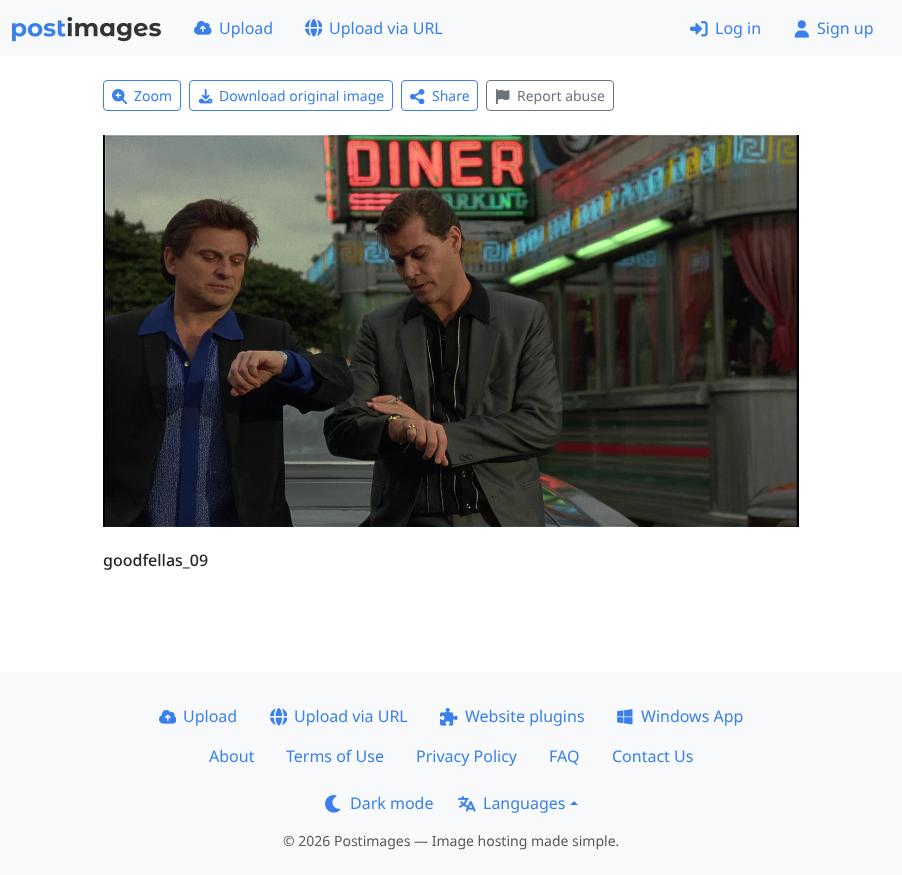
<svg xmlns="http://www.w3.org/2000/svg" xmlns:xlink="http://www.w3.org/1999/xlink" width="902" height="875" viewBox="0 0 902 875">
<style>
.cls-1{font:16px Noto Sans;fill:#3a80ea}
.cls-2{font:14px Noto Sans;fill:#3a80ea}
.cls-3{font:14px Noto Sans;fill:#6c757d}
.cls-4{font:500 16px Noto Sans;fill:#212529}
.cls-5{font:14px Noto Sans;fill:#575a5d}
</style>
<rect width="100%" height="100%" fill="#ffffff"/>
<rect fill="#f8f9fa" x="0" y="0" width="902" height="56"/>
<image xlink:href="image0.png" x="12" y="17" width="149" height="25"/>
<image xlink:href="image1.png" x="194" y="21" width="18" height="14"/>
<image xlink:href="image2.png" x="305" y="19" width="17" height="18"/>
<image xlink:href="image3.png" x="690" y="21" width="18" height="16"/>
<image xlink:href="image4.png" x="794" y="20" width="15" height="18"/>
<rect fill="none" stroke="#3a80ea" x="103.5" y="80.5" width="77" height="30" rx="3.5"/>
<image xlink:href="image5.png" x="112" y="89" width="15" height="15"/>
<rect fill="none" stroke="#3a80ea" x="189.5" y="80.5" width="203" height="30" rx="3.5"/>
<image xlink:href="image6.png" x="198" y="89" width="15" height="15"/>
<rect fill="none" stroke="#3a80ea" x="401.5" y="80.5" width="76" height="30" rx="3.5"/>
<image xlink:href="image7.png" x="410" y="89" width="15" height="15"/>
<rect fill="none" stroke="#6c757d" x="486.5" y="80.5" width="127" height="30" rx="3.5"/>
<image xlink:href="image8.png" x="495" y="89" width="15" height="15"/>
<image xlink:href="image9.png" x="103" y="135" width="696" height="392"/>
<rect fill="#f8f9fa" x="0" y="672" width="902" height="203"/>
<image xlink:href="image10.png" x="159" y="710" width="17" height="14"/>
<image xlink:href="image2.png" x="270" y="708" width="17" height="18"/>
<image xlink:href="image11.png" x="440" y="708" width="18" height="18"/>
<image xlink:href="image12.png" x="617" y="709" width="16" height="16"/>
<image xlink:href="image13.png" x="325" y="795" width="16" height="18"/>
<image xlink:href="image14.png" x="458" y="796" width="18" height="16"/>
<path fill="#3a80ea" d="M578 805H570L574 801Z"/>
<text class="cls-1" x="219" y="34">Upload</text>
<text class="cls-1" x="329" y="34">Upload via URL</text>
<text class="cls-1" x="715" y="34">Log in</text>
<text class="cls-1" x="817" y="34">Sign up</text>
<text class="cls-2" x="134" y="101">Zoom</text>
<text class="cls-2" x="219" y="101">Download original image</text>
<text class="cls-2" x="432" y="101">Share</text>
<text class="cls-3" x="517" y="101">Report abuse</text>
<text class="cls-4" x="103" y="566">goodfellas_09</text>
<text class="cls-1" x="183" y="722">Upload</text>
<text class="cls-1" x="294" y="722">Upload via URL</text>
<text class="cls-1" x="465" y="722">Website plugins</text>
<text class="cls-1" x="641" y="722">Windows App</text>
<text class="cls-1" x="209" y="762">About</text>
<text class="cls-1" x="286" y="762">Terms of Use</text>
<text class="cls-1" x="416" y="762">Privacy Policy</text>
<text class="cls-1" x="549" y="762">FAQ</text>
<text class="cls-1" x="612" y="762">Contact Us</text>
<text class="cls-1" x="350" y="809">Dark mode</text>
<text class="cls-1" x="483" y="809">Languages</text>
<text class="cls-5" x="283" y="846">© 2026 Postimages — Image hosting made simple.</text>
</svg>
